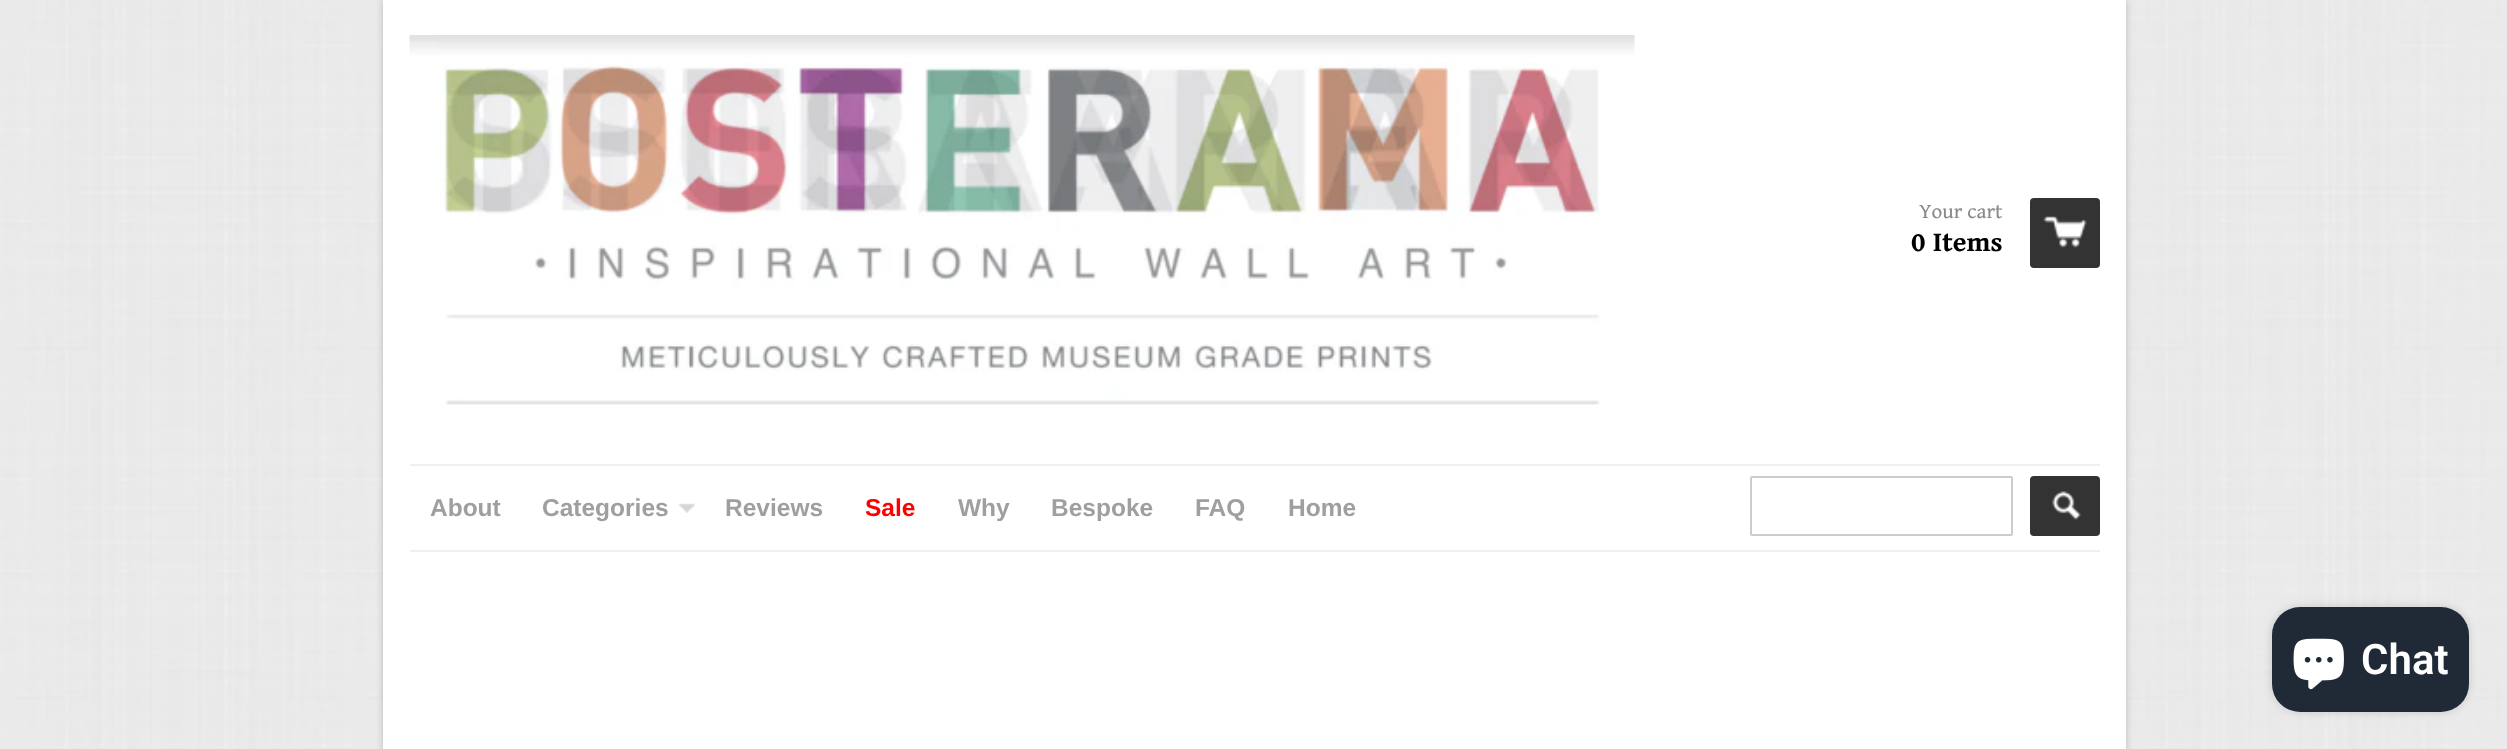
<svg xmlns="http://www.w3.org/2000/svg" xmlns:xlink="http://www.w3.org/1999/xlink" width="2507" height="749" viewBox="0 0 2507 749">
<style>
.cls-1{font:21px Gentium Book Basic;fill:#888888}
.cls-2{font:bold 28px Gentium Book Basic;fill:#000000}
.cls-3{font:bold 24.5px Liberation Sans;fill:#9f9f9f}
.cls-4{font:bold 24.5px Liberation Sans;fill:#ff0000}
.cls-5{font:600 42px Roboto;fill:#ffffff}
</style>
<rect width="100%" height="100%" fill="#ffffff"/>
<image xlink:href="image0.png" x="0" y="0" width="2507" height="749"/>
<rect fill="#000000" fill-opacity="0.2" filter="blur(3.5px)" x="383" y="0" width="1743" height="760"/>
<rect fill="#ffffff" x="383" y="0" width="1743" height="749"/>
<image xlink:href="image1.png" x="409" y="35" width="1226" height="370"/>
<rect fill="#333333" x="2030" y="198" width="70" height="70" rx="4"/>
<image xlink:href="image2.png" x="2043" y="216" width="44" height="32"/>
<rect fill="#f0f0f0" x="410" y="464" width="1690" height="2"/>
<rect fill="#f0f0f0" x="410" y="550" width="1690" height="2"/>
<image xlink:href="image3.png" x="678" y="503" width="17" height="10"/>
<rect fill="none" stroke="#cccccc" stroke-width="2" x="1751" y="477" width="261" height="58" rx="1"/>
<rect fill="#333333" x="2030" y="476" width="70" height="60" rx="4"/>
<image xlink:href="image4.png" x="2052" y="491" width="29" height="29"/>
<rect fill="#000000" fill-opacity="0.15" filter="blur(4.5px)" x="2272" y="607" width="197" height="105" rx="28"/>
<rect fill="#202a36" x="2272" y="607" width="197" height="105" rx="28"/>
<image xlink:href="image5.png" x="2293" y="638" width="51" height="52"/>
<text class="cls-1" x="1919" y="218">Your cart</text>
<text class="cls-2" x="1911" y="251">0 Items</text>
<text class="cls-3" x="430" y="516">About</text>
<text class="cls-3" x="542" y="516">Categories</text>
<text class="cls-3" x="725" y="516">Reviews</text>
<text class="cls-4" x="865" y="516">Sale</text>
<text class="cls-3" x="958" y="516">Why</text>
<text class="cls-3" x="1051" y="516">Bespoke</text>
<text class="cls-3" x="1195" y="516">FAQ</text>
<text class="cls-3" x="1288" y="516">Home</text>
<text class="cls-5" x="2361" y="674">Chat</text>
</svg>
